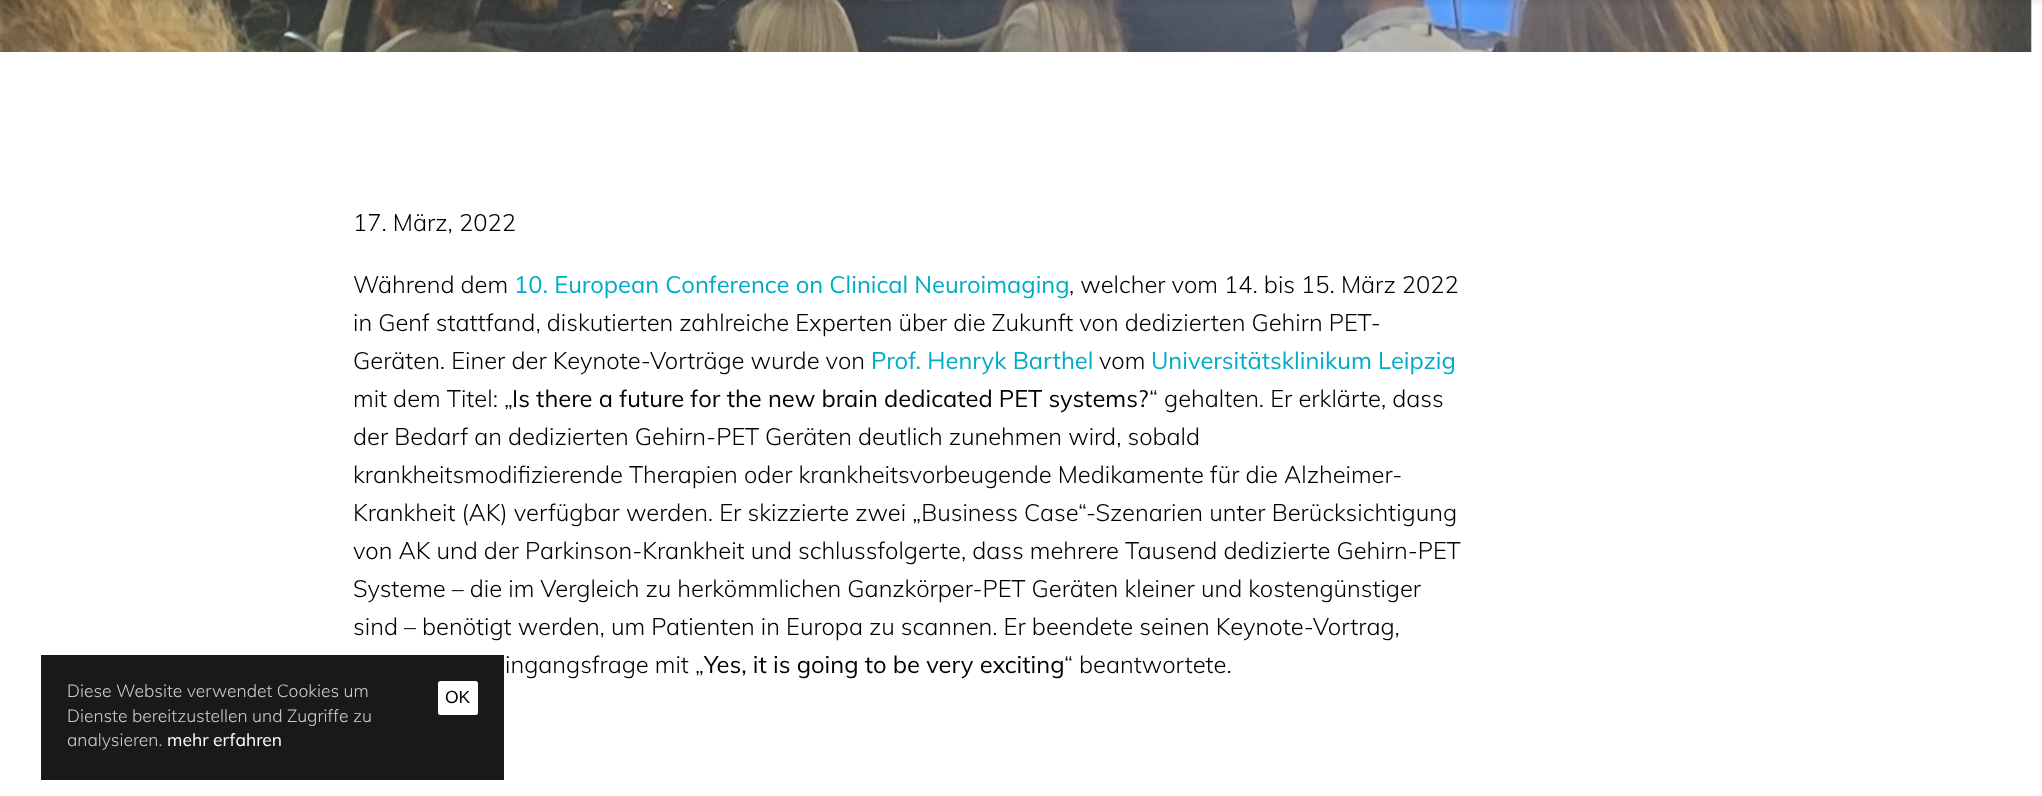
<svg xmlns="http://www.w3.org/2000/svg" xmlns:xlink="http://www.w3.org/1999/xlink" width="2042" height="796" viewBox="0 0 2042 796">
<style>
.cls-1{font:300 23.75px Muli;fill:#000000}
.cls-2{font:23.75px Muli;fill:#00abc8}
.cls-3{font:23.75px Muli;fill:#000000}
.cls-4{font:300 17.5px Muli;fill:#cccccc}
.cls-5{font:17.5px Muli;fill:#ffffff}
.cls-6{font:17.5px Liberation Sans;fill:#000000}
</style>
<rect width="100%" height="100%" fill="#ffffff"/>
<image xlink:href="image0.png" x="0" y="0" width="2032" height="52"/>
<rect fill="#000000" fill-opacity="0.07" filter="blur(2.5px)" x="0" y="-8" width="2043" height="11"/>
<rect fill="#000000" fill-opacity="0.9" x="41" y="655" width="463" height="125"/>
<rect fill="#ffffff" x="438" y="681" width="40" height="34" rx="2.5"/>
<text class="cls-1" x="353" y="231">17. März, 2022</text>
<text class="cls-1" x="353" y="293">Während dem</text>
<text class="cls-2" x="514" y="293">10. European Conference on Clinical Neuroimaging</text>
<text class="cls-1" x="1069" y="293">, welcher vom 14. bis 15. März 2022</text>
<text class="cls-1"><tspan x="353" y="331">in Genf stattfand, diskutierten zahlreiche Experten über die Zukunft von dedizierten Gehirn PET-</tspan><tspan x="353" y="369">Geräten. Einer der Keynote-Vorträge wurde von</tspan></text>
<text class="cls-2" x="871" y="369">Prof. Henryk Barthel</text>
<text class="cls-1" x="1099" y="369">vom</text>
<text class="cls-2" x="1151" y="369">Universitätsklinikum Leipzig</text>
<text class="cls-1" x="353" y="407">mit dem Titel: „</text>
<text class="cls-3" x="512" y="407">Is there a future for the new brain dedicated PET systems?</text>
<text class="cls-1" x="1149" y="407">“ gehalten. Er erklärte, dass</text>
<text class="cls-1"><tspan x="353" y="445">der Bedarf an dedizierten Gehirn-PET Geräten deutlich zunehmen wird, sobald</tspan><tspan x="353" y="483">krankheitsmodifizierende Therapien oder krankheitsvorbeugende Medikamente für die Alzheimer-</tspan><tspan x="353" y="521">Krankheit (AK) verfügbar werden. Er skizzierte zwei „Business Case“-Szenarien unter Berücksichtigung</tspan><tspan x="353" y="559">von AK und der Parkinson-Krankheit und schlussfolgerte, dass mehrere Tausend dedizierte Gehirn-PET</tspan><tspan x="353" y="597">Systeme – die im Vergleich zu herkömmlichen Ganzkörper-PET Geräten kleiner und kostengünstiger</tspan><tspan x="353" y="635">sind – benötigt werden, um Patienten in Europa zu scannen. Er beendete seinen Keynote-Vortrag,</tspan></text>
<text class="cls-1" x="505" y="673">ingangsfrage mit „</text>
<text class="cls-3" x="704" y="673">Yes, it is going to be very exciting</text>
<text class="cls-1" x="1064" y="673">“ beantwortete.</text>
<text class="cls-4"><tspan x="67" y="697">Diese Website verwendet Cookies um</tspan><tspan x="67" y="722">Dienste bereitzustellen und Zugriffe zu</tspan><tspan x="67" y="746">analysieren.</tspan></text>
<text class="cls-5" x="167" y="746">mehr erfahren</text>
<text class="cls-6" x="445" y="703">OK</text>
</svg>
